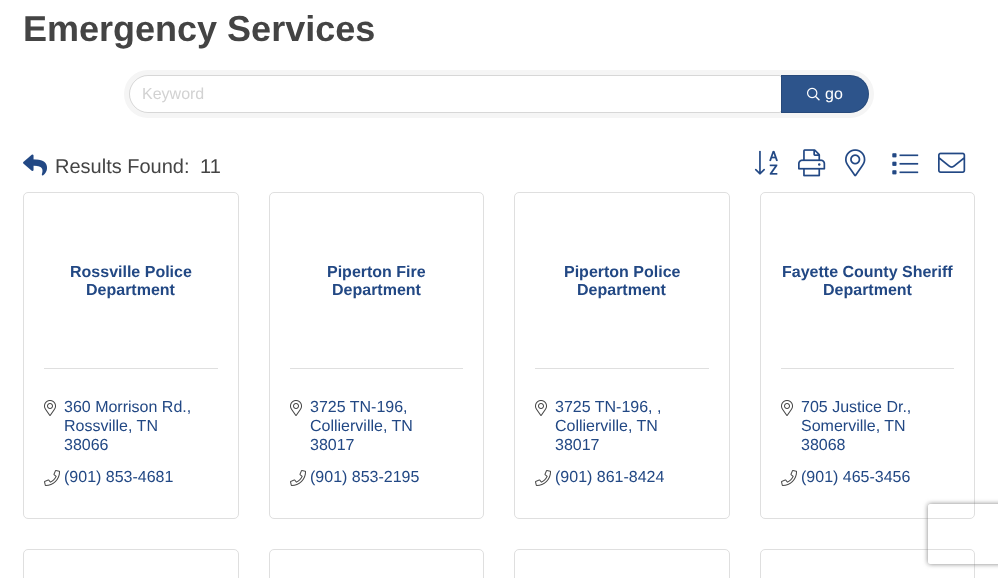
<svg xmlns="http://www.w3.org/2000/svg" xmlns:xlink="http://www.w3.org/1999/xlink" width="998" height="578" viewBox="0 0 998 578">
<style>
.cls-1{font:bold 36px Liberation Sans;fill:#444444}
.cls-2{font:16px Liberation Sans;fill:#d2d2d2}
.cls-3{font:16px Liberation Sans;fill:#ffffff}
.cls-4{font:20px Liberation Sans;fill:#444444}
.cls-5{font:bold 16px Liberation Sans;fill:#224884}
.cls-6{font:16px Liberation Sans;fill:#224884}
</style>
<defs>
<clipPath id="clip1"><path d="M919 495H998V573H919ZM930 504H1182C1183 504 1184 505 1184 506V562C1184 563 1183 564 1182 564H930C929 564 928 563 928 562V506C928 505 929 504 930 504Z" clip-rule="evenodd"/></clipPath>
</defs>
<rect width="100%" height="100%" fill="#ffffff"/>
<rect fill="#f5f5f5" x="124" y="70" width="750" height="48" rx="24"/>
<path fill="#ffffff" d="M148 76H779C780 76 781 77 781 78V110C781 111 780 112 779 112H148C138 112 130 104 130 94C130 84 138 76 148 76Z"/>
<path fill="none" stroke="#000000" stroke-opacity="0.12" d="M148 75.5H779C780.5 75.5 781.5 76.5 781.5 78V110C781.5 111.5 780.5 112.5 779 112.5H148C138 112.5 129.5 104 129.5 94C129.5 84 138 75.5 148 75.5Z"/>
<path fill="#2d548b" d="M781 75H850C860.5 75 869 83.5 869 94C869 104.5 860.5 113 850 113H781Z"/>
<path fill="none" stroke="#000000" stroke-opacity="0.12" d="M781.5 75.5H850C860 75.5 868.5 84 868.5 94C868.5 104 860 112.5 850 112.5H781.5Z"/>
<image xlink:href="image0.png" x="807" y="87" width="13" height="14"/>
<image xlink:href="image1.png" x="23" y="154" width="24" height="22"/>
<image xlink:href="image2.png" x="754" y="150" width="24" height="25"/>
<image xlink:href="image3.png" x="798" y="149" width="28" height="28"/>
<image xlink:href="image4.png" x="845" y="149" width="21" height="28"/>
<image xlink:href="image5.png" x="892" y="153" width="27" height="22"/>
<image xlink:href="image6.png" x="938" y="152" width="28" height="21"/>
<rect fill="none" stroke="#dfdfdf" x="23.5" y="192.5" width="215" height="326" rx="4.5"/>
<rect fill="#dfdfdf" x="44" y="368" width="174" height="1"/>
<image xlink:href="image7.png" x="44" y="400" width="12" height="16"/>
<image xlink:href="image8.png" x="44" y="470" width="16" height="16"/>
<rect fill="none" stroke="#dfdfdf" x="269.5" y="192.5" width="214" height="326" rx="4.5"/>
<rect fill="#dfdfdf" x="290" y="368" width="173" height="1"/>
<image xlink:href="image7.png" x="290" y="400" width="12" height="16"/>
<image xlink:href="image8.png" x="290" y="470" width="16" height="16"/>
<rect fill="none" stroke="#dfdfdf" x="514.5" y="192.5" width="215" height="326" rx="4.5"/>
<rect fill="#dfdfdf" x="535" y="368" width="174" height="1"/>
<image xlink:href="image7.png" x="535" y="400" width="12" height="16"/>
<image xlink:href="image8.png" x="535" y="470" width="16" height="16"/>
<rect fill="none" stroke="#dfdfdf" x="760.5" y="192.5" width="214" height="326" rx="4.5"/>
<rect fill="#dfdfdf" x="781" y="368" width="173" height="1"/>
<image xlink:href="image7.png" x="781" y="400" width="12" height="16"/>
<image xlink:href="image8.png" x="781" y="470" width="16" height="16"/>
<rect fill="none" stroke="#dfdfdf" x="23.5" y="549.5" width="215" height="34" rx="4.5"/>
<rect fill="none" stroke="#dfdfdf" x="269.5" y="549.5" width="214" height="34" rx="4.5"/>
<rect fill="none" stroke="#dfdfdf" x="514.5" y="549.5" width="215" height="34" rx="4.5"/>
<rect fill="none" stroke="#dfdfdf" x="760.5" y="549.5" width="214" height="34" rx="4.5"/>
<g clip-path="url(#clip1)">
<rect fill="#808080" filter="blur(2.5px)" x="928" y="504" width="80" height="60" rx="2"/>
</g>
<text class="cls-1" x="23" y="41">Emergency Services</text>
<text class="cls-2" x="142" y="99">Keyword</text>
<text class="cls-3" x="825" y="99">go</text>
<text class="cls-4" x="55" y="173">Results Found:</text>
<text class="cls-4" x="200" y="173">11</text>
<text class="cls-5" x="70" y="277">Rossville Police</text>
<text class="cls-5" x="86" y="295">Department</text>
<text class="cls-6"><tspan x="64" y="412">360 Morrison Rd.,</tspan><tspan x="64" y="431">Rossville, TN</tspan><tspan x="64" y="450">38066</tspan></text>
<text class="cls-6" x="64" y="482">(901) 853-4681</text>
<text class="cls-5" x="327" y="277">Piperton Fire</text>
<text class="cls-5" x="332" y="295">Department</text>
<text class="cls-6"><tspan x="310" y="412">3725 TN-196,</tspan><tspan x="310" y="431">Collierville, TN</tspan><tspan x="310" y="450">38017</tspan></text>
<text class="cls-6" x="310" y="482">(901) 853-2195</text>
<text class="cls-5" x="564" y="277">Piperton Police</text>
<text class="cls-5" x="577" y="295">Department</text>
<text class="cls-6"><tspan x="555" y="412">3725 TN-196, ,</tspan><tspan x="555" y="431">Collierville, TN</tspan><tspan x="555" y="450">38017</tspan></text>
<text class="cls-6" x="555" y="482">(901) 861-8424</text>
<text class="cls-5" x="782" y="277">Fayette County Sheriff</text>
<text class="cls-5" x="823" y="295">Department</text>
<text class="cls-6"><tspan x="801" y="412">705 Justice Dr.,</tspan><tspan x="801" y="431">Somerville, TN</tspan><tspan x="801" y="450">38068</tspan></text>
<text class="cls-6" x="801" y="482">(901) 465-3456</text>
</svg>
